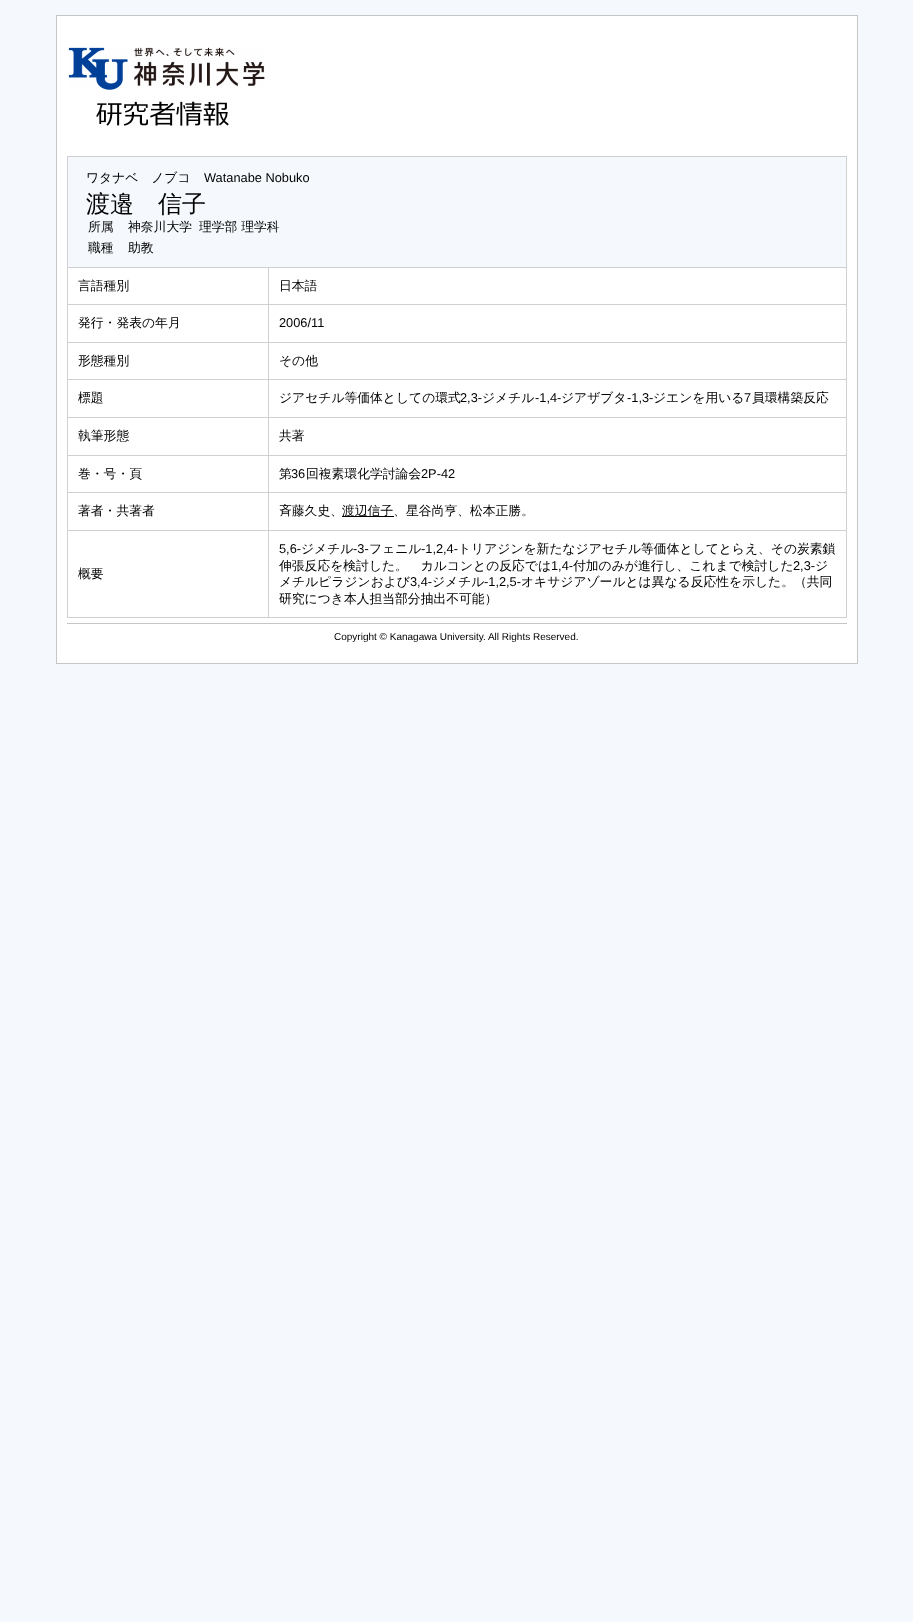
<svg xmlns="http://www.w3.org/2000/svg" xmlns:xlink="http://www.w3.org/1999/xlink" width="913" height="1622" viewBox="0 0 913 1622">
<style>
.cls-1{font:500 12.8px WenQuanYi Zen Hei;fill:#000000}
.cls-2{font:12.8px Liberation Sans;fill:#000000}
.cls-3{font:500 24px WenQuanYi Zen Hei;fill:#000000}
.cls-4{font:10px Liberation Sans;fill:#000000}
</style>
<rect width="100%" height="100%" fill="#f5f9fd"/>
<rect fill="#ffffff" stroke="#c6c6c6" x="56.5" y="15.5" width="801" height="648"/>
<image xlink:href="image0.png" x="68" y="47" width="197" height="43"/>
<image xlink:href="image1.png" x="96" y="101" width="133" height="25"/>
<rect fill="#d0d0d0" x="67" y="156" width="780" height="462"/>
<rect fill="#f5f9fd" x="68" y="157" width="778" height="110"/>
<rect fill="#ffffff" x="68" y="268" width="200" height="36"/>
<rect fill="#ffffff" x="269" y="268" width="577" height="36"/>
<rect fill="#ffffff" x="68" y="305" width="200" height="37"/>
<rect fill="#ffffff" x="269" y="305" width="577" height="37"/>
<rect fill="#ffffff" x="68" y="343" width="200" height="36"/>
<rect fill="#ffffff" x="269" y="343" width="577" height="36"/>
<rect fill="#ffffff" x="68" y="380" width="200" height="37"/>
<rect fill="#ffffff" x="269" y="380" width="577" height="37"/>
<rect fill="#ffffff" x="68" y="418" width="200" height="37"/>
<rect fill="#ffffff" x="269" y="418" width="577" height="37"/>
<rect fill="#ffffff" x="68" y="456" width="200" height="36"/>
<rect fill="#ffffff" x="269" y="456" width="577" height="36"/>
<rect fill="#ffffff" x="68" y="493" width="200" height="37"/>
<rect fill="#ffffff" x="269" y="493" width="577" height="37"/>
<rect fill="#000000" x="342" y="516" width="52" height="1"/>
<rect fill="#ffffff" x="68" y="531" width="200" height="86"/>
<rect fill="#ffffff" x="269" y="531" width="577" height="86"/>
<rect fill="#c6c6c6" x="67" y="623" width="780" height="1"/>
<text class="cls-1" x="86" y="182">ワタナベ　ノブコ</text>
<text class="cls-2" x="204" y="182">Watanabe Nobuko</text>
<text class="cls-3" x="86" y="212">渡邉　信子</text>
<text class="cls-1" x="88" y="231">所属</text>
<text class="cls-1" x="128" y="231">神奈川大学</text>
<text class="cls-1" x="199" y="231">理学部 理学科</text>
<text class="cls-1" x="88" y="252">職種</text>
<text class="cls-1" x="128" y="252">助教</text>
<text class="cls-1" x="78" y="290">言語種別</text>
<text class="cls-1" x="279" y="290">日本語</text>
<text class="cls-1" x="78" y="327">発行・発表の年月</text>
<text class="cls-2" x="279" y="327">2006/11</text>
<text class="cls-1" x="78" y="365">形態種別</text>
<text class="cls-1" x="279" y="365">その他</text>
<text class="cls-1" x="78" y="402">標題</text>
<text class="cls-1" x="279" y="402">ジアセチル等価体としての環式</text>
<text class="cls-2" x="460" y="402">2,3-</text>
<text class="cls-1" x="482" y="402">ジメチル</text>
<text class="cls-2" x="535" y="402">-1,4-</text>
<text class="cls-1" x="561" y="402">ジアザブタ</text>
<text class="cls-2" x="627" y="402">-1,3-</text>
<text class="cls-1" x="653" y="402">ジエンを用いる</text>
<text class="cls-2" x="744" y="402">7</text>
<text class="cls-1" x="752" y="402">員環構築反応</text>
<text class="cls-1" x="78" y="440">執筆形態</text>
<text class="cls-1" x="279" y="440">共著</text>
<text class="cls-1" x="78" y="478">巻・号・頁</text>
<text class="cls-1" x="279" y="478">第</text>
<text class="cls-2" x="291" y="478">36</text>
<text class="cls-1" x="306" y="478">回複素環化学討論会</text>
<text class="cls-2" x="421" y="478">2P-42</text>
<text class="cls-1" x="78" y="515">著者・共著者</text>
<text class="cls-1" x="279" y="515">斉藤久史、</text>
<text class="cls-1" x="342" y="515">渡辺信子、星谷尚亨、松本正勝。</text>
<text class="cls-1" x="78" y="578">概要</text>
<text class="cls-2" x="279" y="553">5,6-</text>
<text class="cls-1" x="301" y="553">ジメチル</text>
<text class="cls-2" x="353" y="553">-3-</text>
<text class="cls-1" x="369" y="553">フェニル</text>
<text class="cls-2" x="421" y="553">-1,2,4-</text>
<text class="cls-1" x="458" y="553">トリアジンを新たなジアセチル等価体としてとらえ、その炭素鎖</text>
<text class="cls-1" x="279" y="570">伸張反応を検討した。　カルコンとの反応では</text>
<text class="cls-2" x="551" y="570">1,4-</text>
<text class="cls-1" x="573" y="570">付加のみが進行し、これまで検討した</text>
<text class="cls-2" x="793" y="570">2,3-</text>
<text class="cls-1" x="815" y="570">ジ</text>
<text class="cls-1" x="279" y="586">メチルピラジンおよび</text>
<text class="cls-2" x="410" y="586">3,4-</text>
<text class="cls-1" x="432" y="586">ジメチル</text>
<text class="cls-2" x="484" y="586">-1,2,5-</text>
<text class="cls-1" x="521" y="586">オキサジアゾールとは異なる反応性を示した。（共同</text>
<text class="cls-1" x="279" y="603">研究につき本人担当部分抽出不可能）</text>
<text class="cls-4" x="334" y="640">Copyright © Kanagawa University. All Rights Reserved.</text>
</svg>
